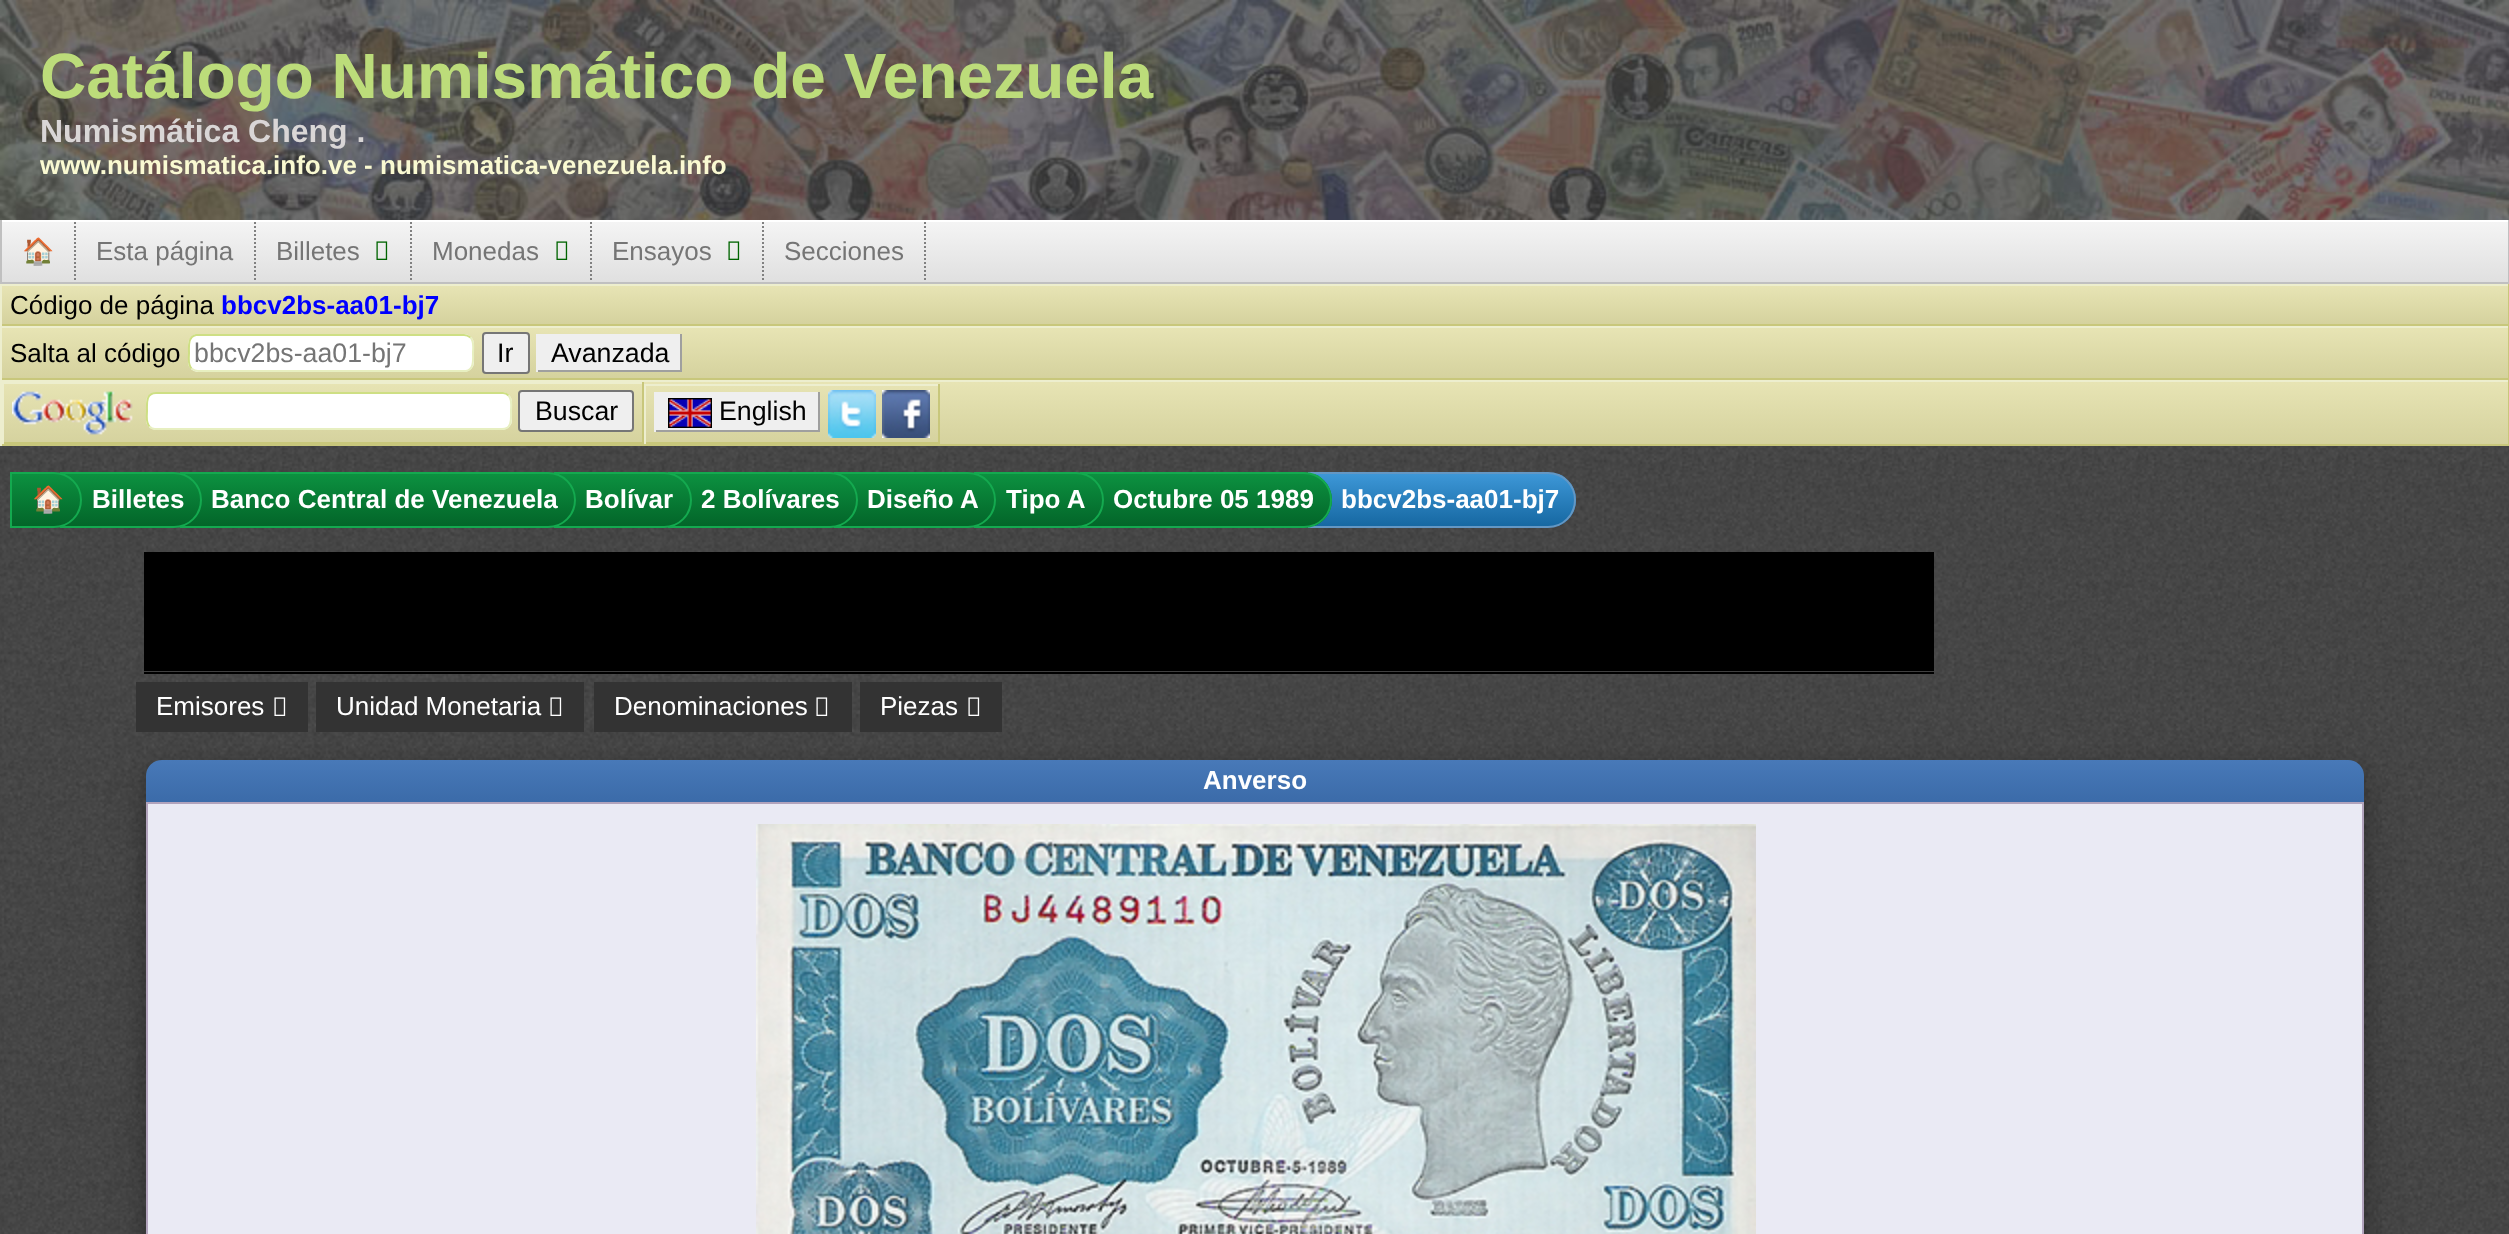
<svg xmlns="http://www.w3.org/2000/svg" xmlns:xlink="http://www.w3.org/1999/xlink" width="2509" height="1234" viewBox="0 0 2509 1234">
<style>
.cls-1{font:bold 64px Liberation Sans;fill:#bcdc7a}
.cls-2{font:bold 32px Liberation Sans;fill:#d9d6d6}
.cls-3{font:bold 26px Liberation Sans;fill:#fafad2}
.cls-4{font:26px Noto Color Emoji;fill:#757575}
.cls-5{font:26px Liberation Sans;fill:#757575}
.cls-6{font:26px Liberation Sans;fill:#000000}
.cls-7{font:bold 26px Liberation Sans;fill:#0000ff}
.cls-8{font:26.75px Liberation Sans;fill:#757575}
.cls-9{font:26.75px Liberation Sans;fill:#000000}
.cls-10{font:bold 26px Noto Color Emoji;fill:#ffffff}
.cls-11{font:bold 26px Liberation Sans;fill:#ffffff}
.cls-12{font:26px Liberation Sans;fill:#ffffff}
</style>
<defs>
<linearGradient id="g1" gradientUnits="userSpaceOnUse" x1="1255" y1="282" x2="1255" y2="222"><stop offset="0" stop-color="#e0e0e0"/><stop offset="1" stop-color="#f4f4f4"/></linearGradient>
<linearGradient id="g2" gradientUnits="userSpaceOnUse" x1="1255" y1="324" x2="1255" y2="286"><stop offset="0" stop-color="#d5d29e"/><stop offset="1" stop-color="#e7e4b4"/></linearGradient>
<linearGradient id="g3" gradientUnits="userSpaceOnUse" x1="1255" y1="378" x2="1255" y2="328"><stop offset="0" stop-color="#d5d29e"/><stop offset="1" stop-color="#e7e4b4"/></linearGradient>
<linearGradient id="g4" gradientUnits="userSpaceOnUse" x1="1255" y1="444" x2="1255" y2="382"><stop offset="0" stop-color="#d5d29e"/><stop offset="1" stop-color="#e7e4b4"/></linearGradient>
<clipPath id="clip1"><path d="M1308 472H1548C1563.5 472 1576 484.5 1576 500C1576 515.5 1563.5 528 1548 528H1308Z"/></clipPath>
<linearGradient id="g5" gradientUnits="userSpaceOnUse" x1="1442" y1="526" x2="1442" y2="474"><stop offset="0" stop-color="#1668a2"/><stop offset="1" stop-color="#3d97d7"/></linearGradient>
<clipPath id="clip2"><path d="M1080 472H1304C1319.5 472 1332 484.5 1332 500C1332 515.5 1319.5 528 1304 528H1080Z"/></clipPath>
<linearGradient id="g6" gradientUnits="userSpaceOnUse" x1="1206" y1="526" x2="1206" y2="474"><stop offset="0" stop-color="#036529"/><stop offset="1" stop-color="#0c9140"/></linearGradient>
<clipPath id="clip3"><path d="M974 472H1076C1091.5 472 1104 484.5 1104 500C1104 515.5 1091.5 528 1076 528H974Z"/></clipPath>
<linearGradient id="g7" gradientUnits="userSpaceOnUse" x1="1039" y1="526" x2="1039" y2="474"><stop offset="0" stop-color="#036529"/><stop offset="1" stop-color="#0c9140"/></linearGradient>
<clipPath id="clip4"><path d="M834 472H968C983.5 472 996 484.5 996 500C996 515.5 983.5 528 968 528H834Z"/></clipPath>
<linearGradient id="g8" gradientUnits="userSpaceOnUse" x1="915" y1="526" x2="915" y2="474"><stop offset="0" stop-color="#036529"/><stop offset="1" stop-color="#0c9140"/></linearGradient>
<clipPath id="clip5"><path d="M668 472H830C845.5 472 858 484.5 858 500C858 515.5 845.5 528 830 528H668Z"/></clipPath>
<linearGradient id="g9" gradientUnits="userSpaceOnUse" x1="763" y1="526" x2="763" y2="474"><stop offset="0" stop-color="#036529"/><stop offset="1" stop-color="#0c9140"/></linearGradient>
<clipPath id="clip6"><path d="M554 472H664C679.5 472 692 484.5 692 500C692 515.5 679.5 528 664 528H554Z"/></clipPath>
<linearGradient id="g10" gradientUnits="userSpaceOnUse" x1="623" y1="526" x2="623" y2="474"><stop offset="0" stop-color="#036529"/><stop offset="1" stop-color="#0c9140"/></linearGradient>
<clipPath id="clip7"><path d="M180 472H548C563.5 472 576 484.5 576 500C576 515.5 563.5 528 548 528H180Z"/></clipPath>
<linearGradient id="g11" gradientUnits="userSpaceOnUse" x1="378" y1="526" x2="378" y2="474"><stop offset="0" stop-color="#036529"/><stop offset="1" stop-color="#0c9140"/></linearGradient>
<clipPath id="clip8"><path d="M60 472H174C189.5 472 202 484.5 202 500C202 515.5 189.5 528 174 528H60Z"/></clipPath>
<linearGradient id="g12" gradientUnits="userSpaceOnUse" x1="131" y1="526" x2="131" y2="474"><stop offset="0" stop-color="#036529"/><stop offset="1" stop-color="#0c9140"/></linearGradient>
<clipPath id="clip9"><path d="M10 472H54C69.5 472 82 484.5 82 500C82 515.5 69.5 528 54 528H10Z"/></clipPath>
<linearGradient id="g13" gradientUnits="userSpaceOnUse" x1="46" y1="526" x2="46" y2="474"><stop offset="0" stop-color="#036529"/><stop offset="1" stop-color="#0c9140"/></linearGradient>
<linearGradient id="g14" gradientUnits="userSpaceOnUse" x1="1255" y1="802" x2="1255" y2="760"><stop offset="0" stop-color="#3b6ba9"/><stop offset="1" stop-color="#4879b8"/></linearGradient>
</defs>
<rect width="100%" height="100%" fill="#ffffff"/>
<image xlink:href="image0.png" x="0" y="446" width="2509" height="788"/>
<image xlink:href="image1.png" x="0" y="0" width="2509" height="220"/>
<rect fill="url(#g1)" x="2" y="222" width="2506" height="60"/>
<rect fill="#c0c0c0" x="2508" y="220" width="1" height="64"/>
<rect fill="#c0c0c0" x="0" y="282" width="2509" height="2"/>
<rect fill="#c0c0c0" x="0" y="220" width="2" height="64"/>
<path fill="none" stroke="#808080" stroke-width="2" stroke-dasharray="2 2" d="M75 222V282"/>
<path fill="none" stroke="#808080" stroke-width="2" stroke-dasharray="2 2" d="M255 222V282"/>
<path fill="none" stroke="#808080" stroke-width="2" stroke-dasharray="2 2" d="M411 222V282"/>
<image xlink:href="image2.png" x="376" y="241" width="12" height="19"/>
<path fill="none" stroke="#808080" stroke-width="2" stroke-dasharray="2 2" d="M591 222V282"/>
<image xlink:href="image2.png" x="556" y="241" width="12" height="19"/>
<path fill="none" stroke="#808080" stroke-width="2" stroke-dasharray="2 2" d="M763 222V282"/>
<image xlink:href="image2.png" x="728" y="241" width="12" height="19"/>
<path fill="none" stroke="#808080" stroke-width="2" stroke-dasharray="2 2" d="M925 222V282"/>
<rect fill="url(#g2)" x="2" y="286" width="2506" height="38"/>
<rect fill="#edeece" x="0" y="284" width="2509" height="2"/>
<rect fill="#c8c77b" x="2508" y="284" width="1" height="42"/>
<rect fill="#c8c77b" x="0" y="324" width="2509" height="2"/>
<rect fill="#edeece" x="0" y="284" width="2" height="42"/>
<rect fill="url(#g3)" x="2" y="328" width="2506" height="50"/>
<rect fill="#edeece" x="0" y="326" width="2509" height="2"/>
<rect fill="#c8c77b" x="2508" y="326" width="1" height="54"/>
<rect fill="#c8c77b" x="0" y="378" width="2509" height="2"/>
<rect fill="#edeece" x="0" y="326" width="2" height="54"/>
<rect fill="#ffffff" x="188" y="334" width="286" height="38" rx="10"/>
<path fill="none" stroke="#e7efc0" stroke-width="2" d="M470.5 337.5C474.5 341.5 473 348 473 353C473 359.5 474.5 369 466 371H198C195.5 371 193.5 370 191.5 368.5"/>
<path fill="none" stroke="#cedf84" stroke-width="2" d="M191.5 368.5C187.5 364.5 189 358 189 353C189 346.5 187.5 337 196 335H464C466.5 335 468.5 336 470.5 337.5"/>
<rect fill="#efefef" stroke="#767676" stroke-width="2" x="483" y="333" width="46" height="40" rx="3"/>
<rect fill="#efefef" x="538" y="334" width="142" height="36"/>
<rect fill="#9f9f9f" x="680" y="334" width="2" height="38"/>
<rect fill="#9f9f9f" x="536" y="370" width="146" height="2"/>
<rect fill="#efefef" x="536" y="334" width="2" height="38"/>
<rect fill="url(#g4)" x="4" y="382" width="2504" height="62"/>
<rect fill="#edeece" x="0" y="380" width="2509" height="2"/>
<rect fill="#c8c77b" x="2508" y="380" width="1" height="66"/>
<rect fill="#c8c77b" x="0" y="444" width="2509" height="2"/>
<rect fill="#edeece" x="0" y="380" width="2" height="66"/>
<rect fill="#edeece" x="2" y="382" width="642" height="2"/>
<rect fill="#c8c77b" x="642" y="382" width="2" height="62"/>
<rect fill="#c8c77b" x="2" y="442" width="642" height="2"/>
<rect fill="#edeece" x="2" y="382" width="2" height="62"/>
<image xlink:href="image3.png" x="12" y="391" width="121" height="44"/>
<rect fill="#ffffff" x="146" y="392" width="366" height="38" rx="10"/>
<path fill="none" stroke="#e7efc0" stroke-width="2" d="M508.5 395.5C512.5 399.5 511 406 511 411C511 418 512.5 429 502 429H155C153 429 151 428 149.5 426.5"/>
<path fill="none" stroke="#cedf84" stroke-width="2" d="M149.5 426.5C145.5 422.5 147 416 147 411C147 404 145.5 393 156 393H503C505 393 507 394 508.5 395.5"/>
<rect fill="#efefef" stroke="#767676" stroke-width="2" x="519" y="391" width="114" height="40" rx="3"/>
<rect fill="#edeece" x="644" y="384" width="296" height="2"/>
<rect fill="#c8c77b" x="938" y="384" width="2" height="60"/>
<rect fill="#c8c77b" x="644" y="442" width="296" height="2"/>
<rect fill="#edeece" x="644" y="384" width="2" height="60"/>
<rect fill="#efefef" x="656" y="392" width="162" height="38"/>
<rect fill="#9f9f9f" x="818" y="392" width="2" height="40"/>
<rect fill="#9f9f9f" x="654" y="430" width="166" height="2"/>
<rect fill="#efefef" x="654" y="392" width="2" height="40"/>
<image xlink:href="image4.png" x="668" y="398" width="44" height="30"/>
<image xlink:href="image5.png" x="828" y="390" width="48" height="48"/>
<image xlink:href="image6.png" x="882" y="390" width="48" height="48"/>
<g clip-path="url(#clip1)">
<rect fill="url(#g5)" x="1314" y="474" width="262" height="52"/>
</g>
<path fill="none" stroke="#6397c4" stroke-width="2" d="M1309 473H1548C1563 473 1575 485 1575 500C1575 515 1563 527 1548 527H1309Z"/>
<g clip-path="url(#clip2)">
<rect fill="url(#g6)" x="1086" y="474" width="246" height="52"/>
</g>
<path fill="none" stroke="#14a94f" stroke-width="2" d="M1081 473H1304C1319 473 1331 485 1331 500C1331 515 1319 527 1304 527H1081Z"/>
<g clip-path="url(#clip3)">
<rect fill="url(#g7)" x="978" y="474" width="126" height="52"/>
</g>
<path fill="none" stroke="#14a94f" stroke-width="2" d="M975 473H1076C1091 473 1103 485 1103 500C1103 515 1091 527 1076 527H975Z"/>
<g clip-path="url(#clip4)">
<rect fill="url(#g8)" x="840" y="474" width="156" height="52"/>
</g>
<path fill="none" stroke="#14a94f" stroke-width="2" d="M835 473H968C983 473 995 485 995 500C995 515 983 527 968 527H835Z"/>
<g clip-path="url(#clip5)">
<rect fill="url(#g9)" x="674" y="474" width="184" height="52"/>
</g>
<path fill="none" stroke="#14a94f" stroke-width="2" d="M669 473H830C845 473 857 485 857 500C857 515 845 527 830 527H669Z"/>
<g clip-path="url(#clip6)">
<rect fill="url(#g10)" x="558" y="474" width="134" height="52"/>
</g>
<path fill="none" stroke="#14a94f" stroke-width="2" d="M555 473H664C679 473 691 485 691 500C691 515 679 527 664 527H555Z"/>
<g clip-path="url(#clip7)">
<rect fill="url(#g11)" x="184" y="474" width="392" height="52"/>
</g>
<path fill="none" stroke="#14a94f" stroke-width="2" d="M181 473H548C563 473 575 485 575 500C575 515 563 527 548 527H181Z"/>
<g clip-path="url(#clip8)">
<rect fill="url(#g12)" x="64" y="474" width="138" height="52"/>
</g>
<path fill="none" stroke="#14a94f" stroke-width="2" d="M61 473H174C189 473 201 485 201 500C201 515 189 527 174 527H61Z"/>
<g clip-path="url(#clip9)">
<rect fill="url(#g13)" x="12" y="474" width="70" height="52"/>
</g>
<path fill="none" stroke="#14a94f" stroke-width="2" d="M11 473H54C69 473 81 485 81 500C81 515 69 527 54 527H11Z"/>
<image xlink:href="image7.png" x="144" y="552" width="1790" height="120"/>
<rect fill="#000000" x="144" y="672" width="1790" height="2"/>
<rect fill="#000000" fill-opacity="0.19" filter="blur(20px)" x="146" y="772" width="2218" height="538" rx="16"/>
<rect fill="#333333" x="136" y="682" width="172" height="50"/>
<image xlink:href="image8.png" x="274" y="697" width="12" height="19"/>
<rect fill="#333333" x="316" y="682" width="268" height="50"/>
<image xlink:href="image8.png" x="550" y="697" width="12" height="19"/>
<rect fill="#333333" x="594" y="682" width="258" height="50"/>
<image xlink:href="image8.png" x="816" y="697" width="12" height="19"/>
<rect fill="#333333" x="860" y="682" width="142" height="50"/>
<image xlink:href="image8.png" x="968" y="697" width="12" height="19"/>
<rect fill="#000000" fill-opacity="0.2" filter="blur(8px)" x="146" y="768" width="2218" height="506" rx="16"/>
<path fill="url(#g14)" d="M162 760H2348C2357 760 2364 767 2364 776V802H146V776C146 767 153 760 162 760Z"/>
<rect fill="#eaeaf4" stroke="#b1a3bc" stroke-width="2" x="147" y="803" width="2216" height="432"/>
<image xlink:href="image9.png" x="756" y="824" width="1000" height="410"/>
<text class="cls-1" x="40" y="98">Catálogo Numismático de Venezuela</text>
<text class="cls-2" x="40" y="142">Numismática Cheng .</text>
<text class="cls-3" x="40" y="174">www.numismatica.info.ve - numismatica-venezuela.info</text>
<text class="cls-4" x="22" y="260">🏠</text>
<text class="cls-5" x="96" y="260">Esta página</text>
<text class="cls-5" x="276" y="260">Billetes</text>
<text class="cls-5" x="432" y="260">Monedas</text>
<text class="cls-5" x="612" y="260">Ensayos</text>
<text class="cls-5" x="784" y="260">Secciones</text>
<text class="cls-6" x="10" y="314">Código de página</text>
<text class="cls-7" x="221" y="314">bbcv2bs-aa01-bj7</text>
<text class="cls-6" x="10" y="362">Salta al código</text>
<text class="cls-8" x="194" y="362">bbcv2bs-aa01-bj7</text>
<text class="cls-9" x="497" y="362">Ir</text>
<text class="cls-9" x="551" y="362">Avanzada</text>
<text class="cls-9" x="535" y="420">Buscar</text>
<text class="cls-9" x="719" y="420">English</text>
<text class="cls-10" x="32" y="508">🏠</text>
<text class="cls-11" x="92" y="508">Billetes</text>
<text class="cls-11" x="211" y="508">Banco Central de Venezuela</text>
<text class="cls-11" x="585" y="508">Bolívar</text>
<text class="cls-11" x="701" y="508">2 Bolívares</text>
<text class="cls-11" x="867" y="508">Diseño A</text>
<text class="cls-11" x="1006" y="508">Tipo A</text>
<text class="cls-11" x="1113" y="508">Octubre 05 1989</text>
<text class="cls-11" x="1341" y="508">bbcv2bs-aa01-bj7</text>
<text class="cls-12" x="156" y="715">Emisores</text>
<text class="cls-12" x="336" y="715">Unidad Monetaria</text>
<text class="cls-12" x="614" y="715">Denominaciones</text>
<text class="cls-12" x="880" y="715">Piezas</text>
<text class="cls-11" x="1203" y="789">Anverso</text>
</svg>
